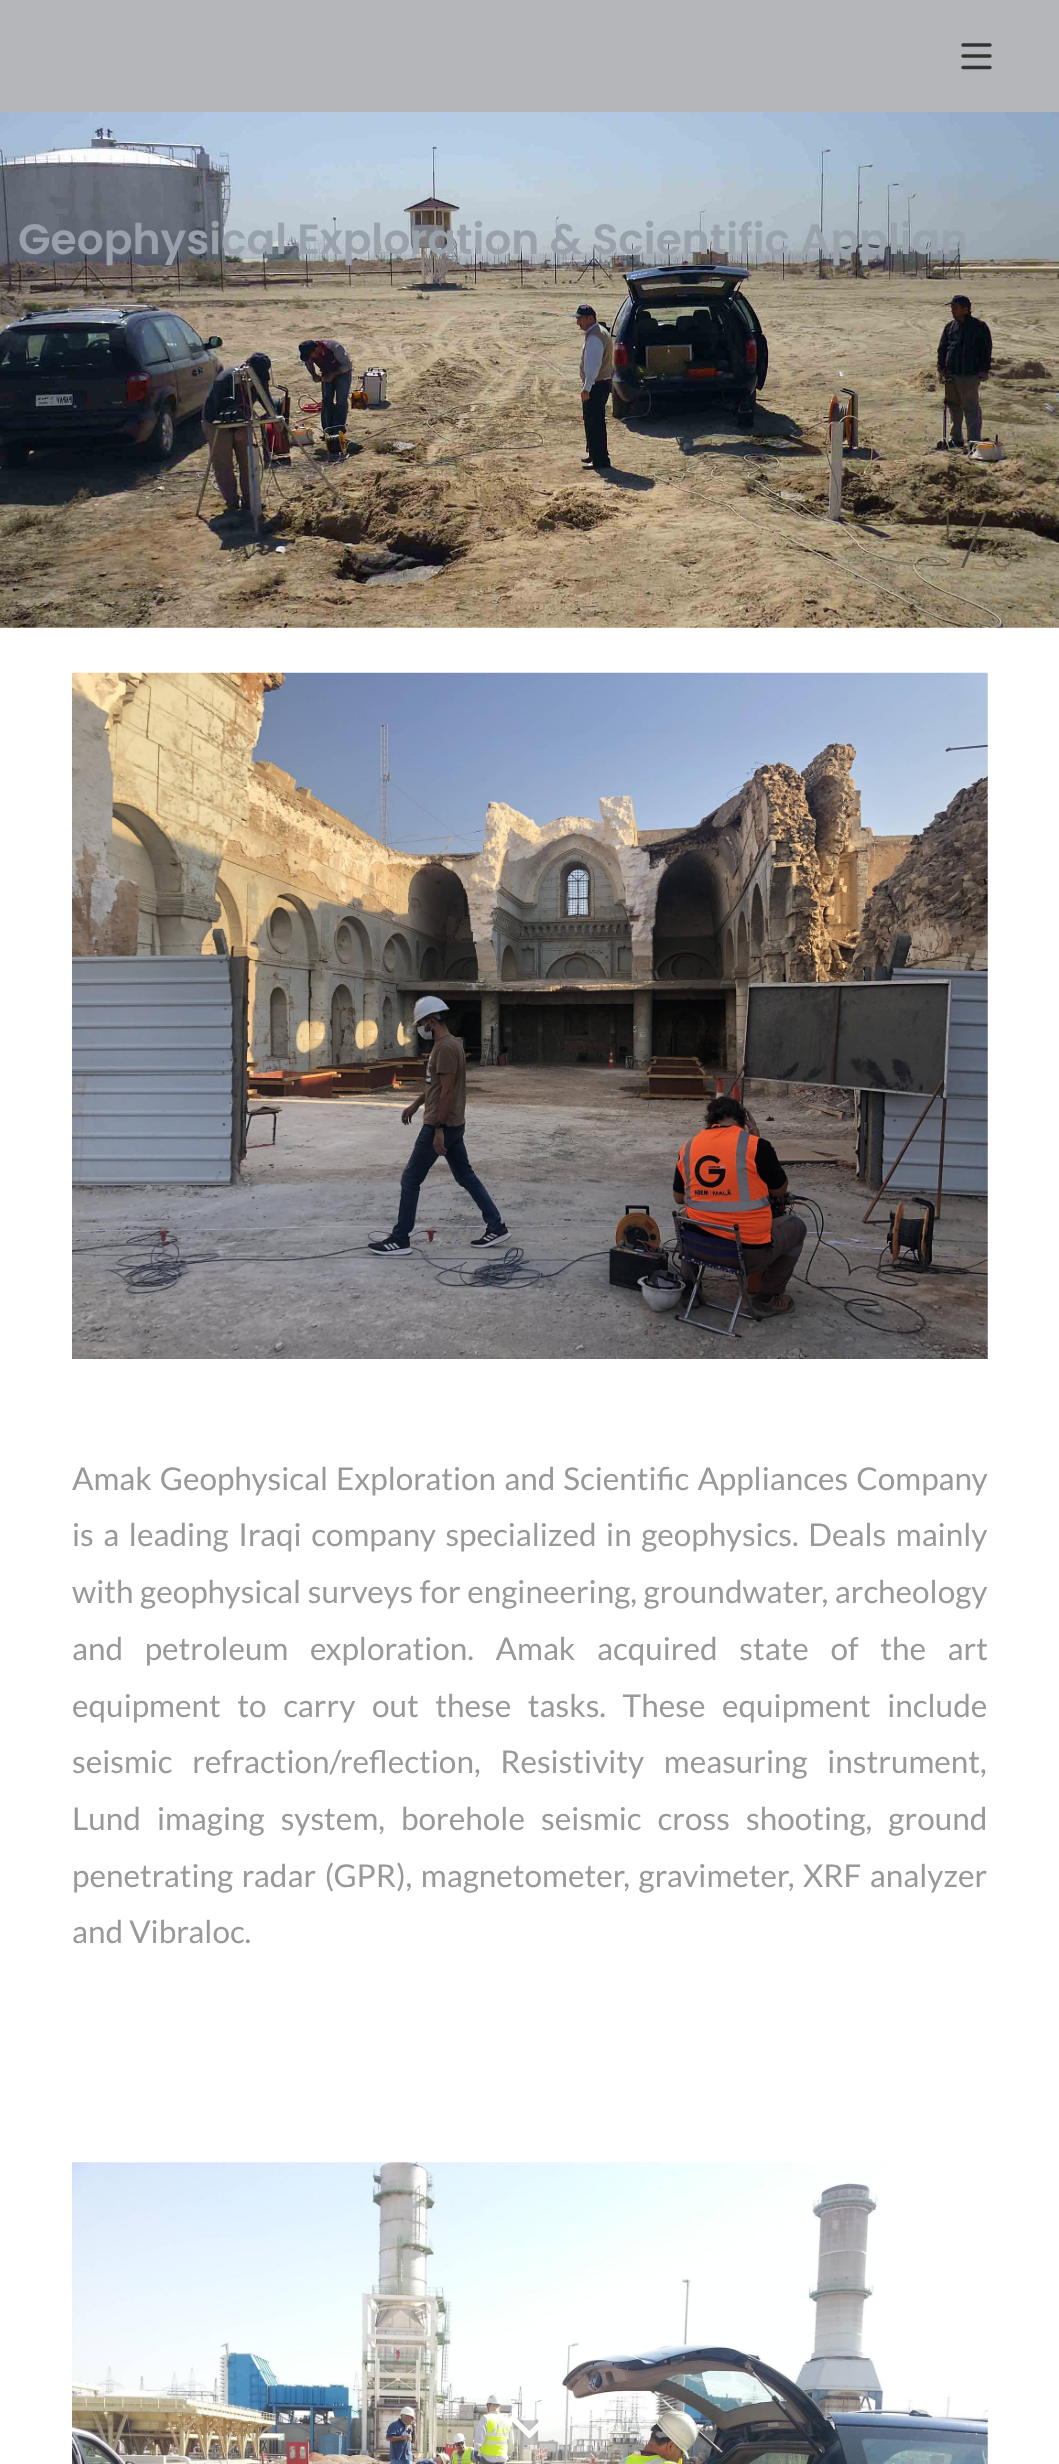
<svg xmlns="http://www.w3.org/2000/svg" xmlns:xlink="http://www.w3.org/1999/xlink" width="1059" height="2464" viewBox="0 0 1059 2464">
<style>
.cls-1{font:600 42.4px Poppins;fill:#99a2aa}
.cls-2{font:300 40px Lato;fill:#554a38}
.cls-3{font:300 72px Lato;fill:#584f41}
.cls-4{font:300 40px Lato;fill:#746852}
.cls-5{font:31.5px Lato;fill:#999999}
</style>
<rect width="100%" height="100%" fill="#ffffff"/>
<rect fill="#b4b6b9" x="0" y="0" width="1059" height="112"/>
<path fill="none" stroke="#333333" stroke-width="3.4" stroke-linecap="round" d="M963 45H990M963 56H990M990 67.5H963"/>
<image xlink:href="image0.png" x="0" y="112" width="1059" height="516"/>
<image xlink:href="image1.png" x="72" y="672" width="916" height="687"/>
<image xlink:href="image2.png" x="72" y="2162" width="916" height="302"/>
<image xlink:href="image3.png" x="509" y="2415" width="30" height="24"/>
<text class="cls-1" x="18" y="254">Geophysical Exploration &amp; Scientific Applian</text>
<text class="cls-2" x="934" y="540">1</text>
<text class="cls-3" x="961" y="565">/</text>
<text class="cls-4" x="991" y="567">3</text>
<text class="cls-5"><tspan x="72" y="1490" word-spacing="2">Amak Geophysical Exploration and Scientific Appliances Company</tspan><tspan x="72" y="1546" word-spacing="3.5">is a leading Iraqi company specialized in geophysics. Deals mainly</tspan><tspan x="72" y="1603" word-spacing="0.5">with geophysical surveys for engineering, groundwater, archeology</tspan><tspan x="72" y="1660" word-spacing="15.5">and petroleum exploration. Amak acquired state of the art</tspan><tspan x="72" y="1717" word-spacing="10.5">equipment to carry out these tasks. These equipment include</tspan><tspan x="72" y="1773" word-spacing="13.5">seismic refraction/reflection, Resistivity measuring instrument,</tspan><tspan x="72" y="1830" word-spacing="10">Lund imaging system, borehole seismic cross shooting, ground</tspan><tspan x="72" y="1887" word-spacing="2.5">penetrating radar (GPR), magnetometer, gravimeter, XRF analyzer</tspan><tspan x="72" y="1943">and Vibraloc.</tspan></text>
</svg>
